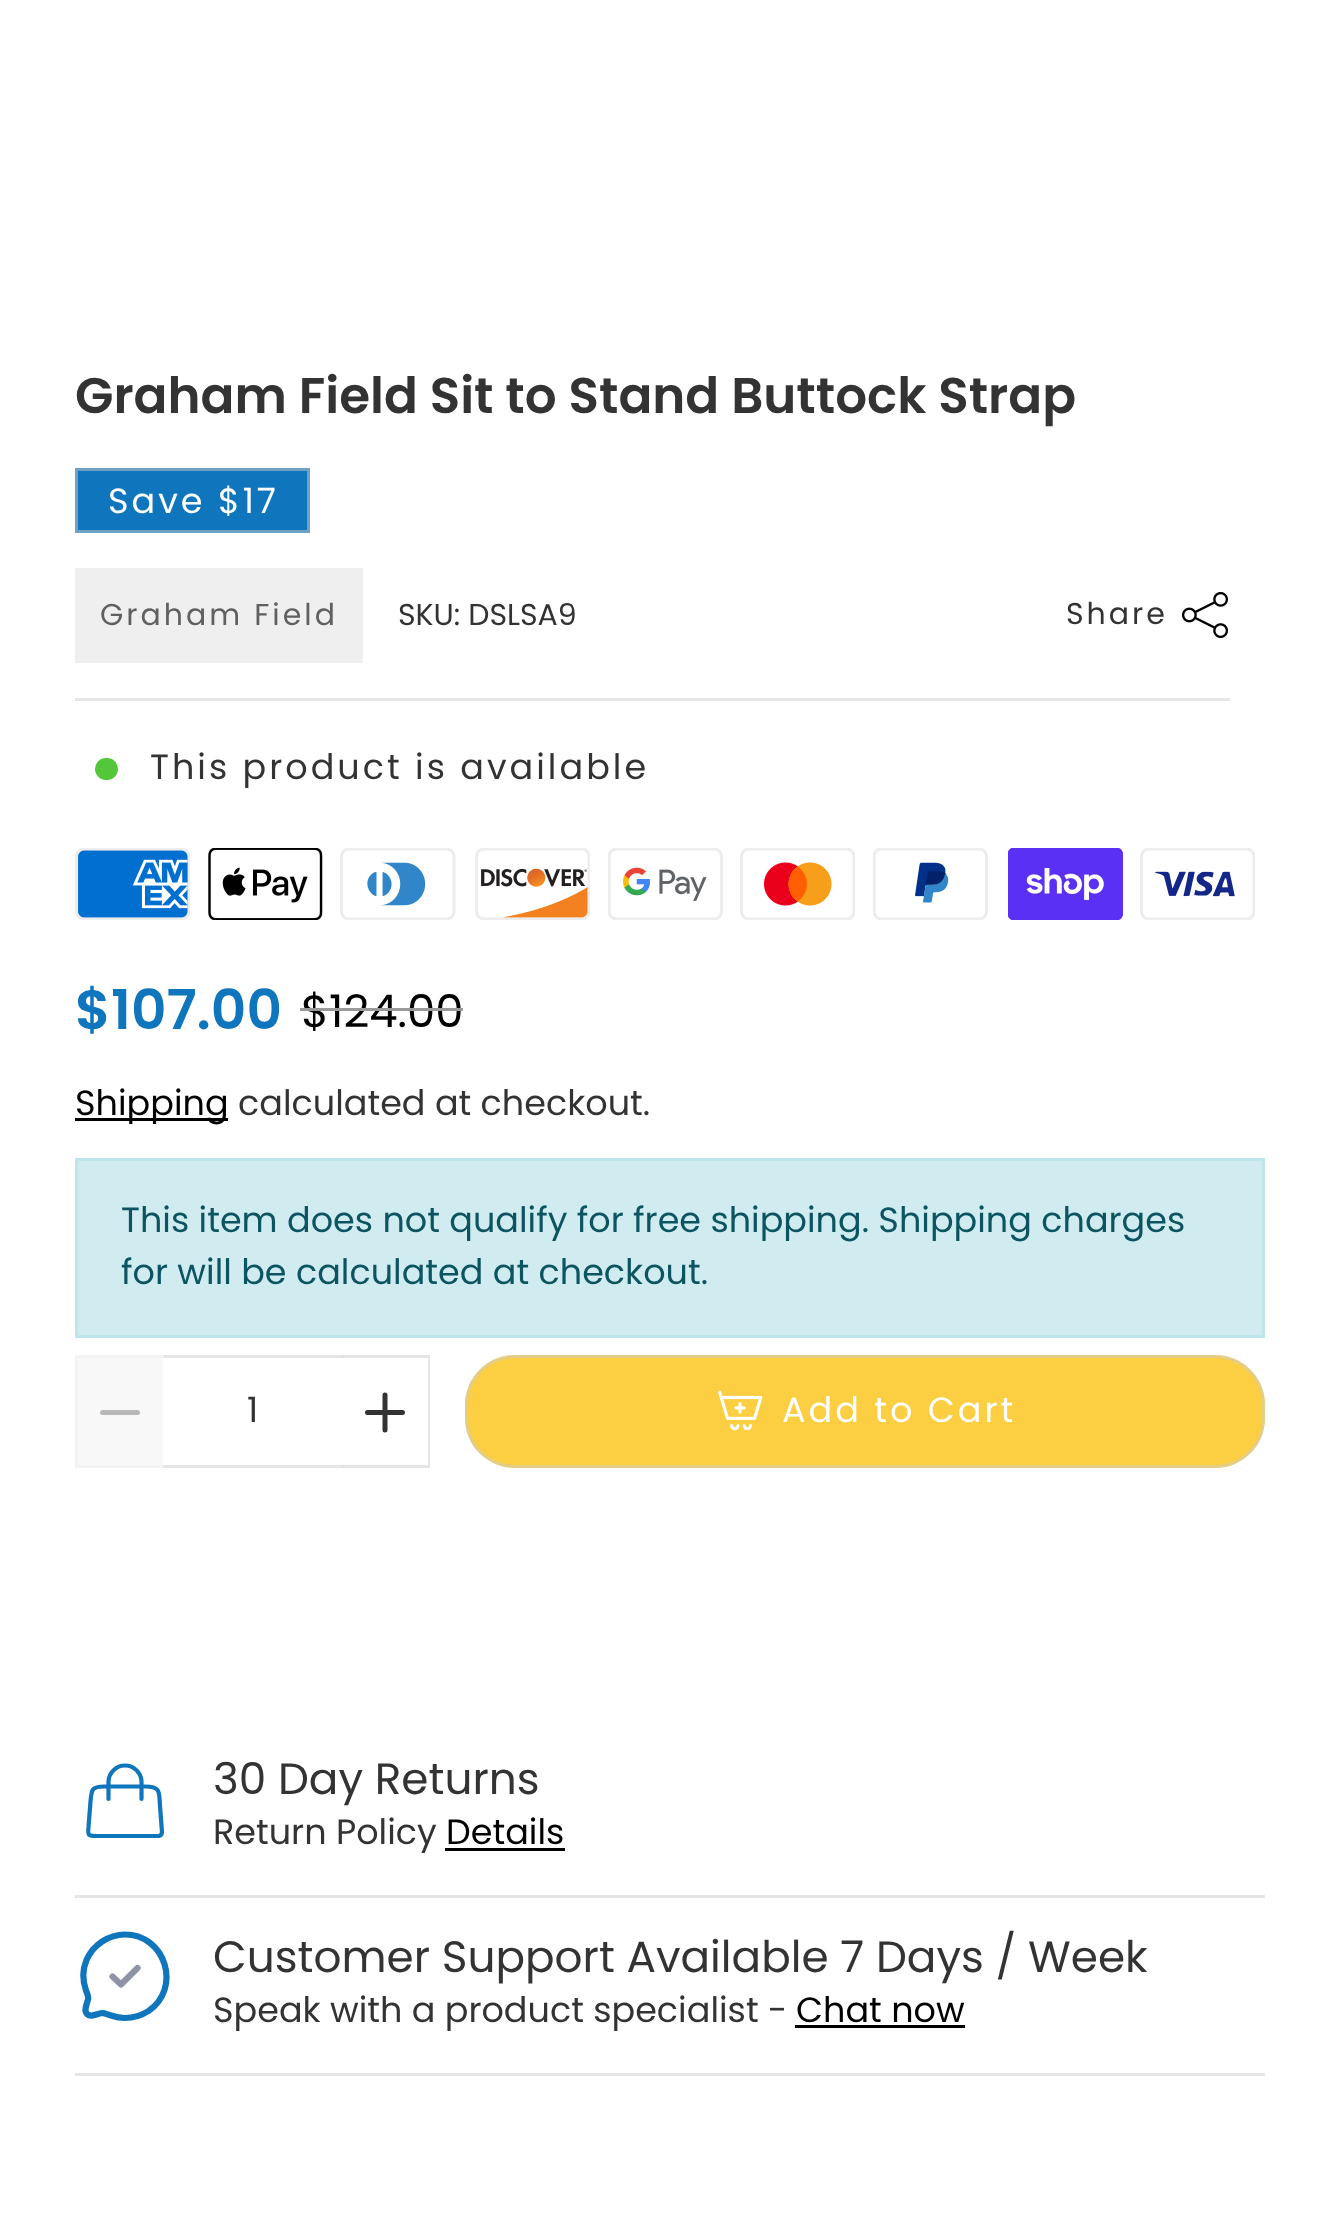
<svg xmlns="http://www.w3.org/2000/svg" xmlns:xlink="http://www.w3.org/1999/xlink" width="1340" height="2215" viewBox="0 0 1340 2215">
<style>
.cls-1{font:600 50px Poppins;fill:#333333}
.cls-2{font:35px Poppins;letter-spacing:3px;fill:#ffffff}
.cls-3{font:30px Poppins;letter-spacing:3px;fill:#606060}
.cls-4{font:30px Poppins;fill:#333333}
.cls-5{font:30px Poppins;letter-spacing:3px;fill:#333333}
.cls-6{font:35px Poppins;letter-spacing:3px;fill:#333333}
.cls-7{font:600 55px Poppins;fill:#0f75bc}
.cls-8{font:45px Poppins;fill:#000000}
.cls-9{font:35px Poppins;fill:#000000}
.cls-10{font:35px Poppins;fill:#333333}
.cls-11{font:35px Poppins;fill:#0c5460}
.cls-12{font:43.75px Poppins;fill:#333333}
</style>
<rect width="100%" height="100%" fill="#ffffff"/>
<rect fill="#0f75bc" stroke="#6ea1c4" stroke-width="3" x="76.5" y="469.5" width="232" height="62"/>
<rect fill="#e6e6e6" x="75" y="698" width="1155" height="3"/>
<rect fill="#efefef" x="75" y="568" width="288" height="95"/>
<image xlink:href="image0.png" x="1181" y="592" width="47" height="46"/>
<rect fill="#54c63a" x="95" y="758" width="23" height="22" rx="11"/>
<image xlink:href="image1.png" x="75" y="848" width="115" height="72"/>
<image xlink:href="image2.png" x="208" y="848" width="115" height="72"/>
<image xlink:href="image3.png" x="340" y="848" width="116" height="72"/>
<image xlink:href="image4.png" x="475" y="848" width="115" height="72"/>
<image xlink:href="image5.png" x="608" y="848" width="115" height="72"/>
<image xlink:href="image6.png" x="740" y="848" width="115" height="72"/>
<image xlink:href="image7.png" x="873" y="848" width="115" height="72"/>
<image xlink:href="image8.png" x="1008" y="848" width="115" height="72"/>
<image xlink:href="image9.png" x="1140" y="848" width="115" height="72"/>
<rect fill="#000000" x="75" y="1118" width="153" height="3"/>
<rect fill="#d1ecf1" stroke="#bee5eb" stroke-width="3" x="76.5" y="1159.5" width="1187" height="177"/>
<rect fill="#f8f8f8" x="75" y="1355" width="88" height="113"/>
<path fill="#f3f3f3" d="M75 1355H162V1358H78Z"/>
<path fill="#f3f3f3" d="M162 1468H75L78 1465H162Z"/>
<path fill="#ededed" fill-opacity="0.5" d="M75 1468V1355L78 1358V1465Z"/>
<path fill="none" stroke="#b8b8b8" stroke-width="5" stroke-linecap="round" stroke-linejoin="round" d="M102.5 1412.5H137.5"/>
<rect fill="#e6e6e6" x="163" y="1355" width="180" height="3"/>
<rect fill="#e6e6e6" x="163" y="1465" width="180" height="3"/>
<path fill="#cccccc" fill-opacity="0.5" d="M342 1355H430L428 1358H342Z"/>
<path fill="#cccccc" fill-opacity="0.5" d="M430 1355V1468L428 1465V1358Z"/>
<path fill="#cccccc" fill-opacity="0.5" d="M430 1468H342V1465H428Z"/>
<path fill="none" stroke="#333333" stroke-width="5" stroke-linecap="round" stroke-linejoin="round" d="M385 1395V1430M367.5 1412.5H402.5"/>
<rect fill="#fcce42" x="465" y="1355" width="800" height="113" rx="50"/>
<rect fill="none" stroke="#cccccc" stroke-opacity="0.5" stroke-width="3" x="466.5" y="1356.5" width="797" height="110" rx="48.5"/>
<image xlink:href="image10.png" x="718" y="1390" width="45" height="41"/>
<rect fill="#e6e6e6" x="75" y="1895" width="1190" height="3"/>
<path fill="none" stroke="#0f75bc" stroke-width="4.2" stroke-linecap="round" d="M108.5 1799V1782C108.5 1773 116 1765.5 125 1765.5C134 1765.5 141.5 1773 141.5 1782V1799"/>
<path fill="none" stroke="#0f75bc" stroke-width="4.2" d="M90.5 1801.5C91.5 1789.5 91.5 1786.5 104.5 1786.5H145.5C161 1786.5 159 1792.5 160 1806L162 1832C162 1834 161 1835.5 159 1836H96.5C88.5 1836 87.5 1835.5 88.5 1827Z"/>
<rect fill="#000000" x="445" y="1848" width="120" height="3"/>
<rect fill="#e6e6e6" x="75" y="2073" width="1190" height="3"/>
<path fill="none" stroke="#0f75bc" stroke-width="6.2" d="M125 2018C133.5 2018 141.5 2015.5 148.5 2011C182 1988 165.5 1934.5 125 1934.5C108.5 1934.5 93 1945 86.5 1960C82.5 1969.5 82.5 1980.5 86 1990.5C87 1993.5 89 1996.5 88 1999.5C87 2003.5 83.5 2010.5 87 2014C91.5 2018.5 98.5 2012.5 103.5 2013L111 2015.5C115.5 2017 120 2018 125 2018Z"/>
<path fill="none" stroke="#8e93a6" stroke-width="6.2" stroke-linecap="round" stroke-linejoin="round" d="M112.5 1976.5L121 1984.5L137.5 1968"/>
<rect fill="#000000" x="795" y="2025" width="170" height="3"/>
<text class="cls-1" x="75" y="413">Graham Field Sit to Stand Buttock Strap</text>
<text class="cls-2" x="108" y="513">Save $17</text>
<text class="cls-3" x="100" y="625">Graham Field</text>
<text class="cls-4" x="398" y="625">SKU: DSLSA9</text>
<text class="cls-5" x="1066" y="624">Share</text>
<text class="cls-6" x="150" y="779">This product is available</text>
<text class="cls-7" x="75" y="1029">$107.00</text>
<text class="cls-8" x="301" y="1027">$124.00</text>
<rect fill="#999999" x="300" y="1008" width="163" height="3"/>
<text class="cls-9" x="75" y="1115">Shipping</text>
<text class="cls-10" x="238" y="1115">calculated at checkout.</text>
<text class="cls-11"><tspan x="121" y="1232">This item does not qualify for free shipping. Shipping charges</tspan><tspan x="121" y="1284">for will be calculated at checkout.</tspan></text>
<text class="cls-10" x="247" y="1422">1</text>
<text class="cls-2" x="782" y="1422">Add to Cart</text>
<text class="cls-12" x="213" y="1794">30 Day Returns</text>
<text class="cls-10" x="213" y="1844">Return Policy</text>
<text class="cls-9" x="446" y="1844">Details</text>
<text class="cls-12" x="213" y="1972">Customer Support Available 7 Days / Week</text>
<text class="cls-10" x="213" y="2022">Speak with a product specialist -</text>
<text class="cls-9" x="796" y="2022">Chat now</text>
</svg>
